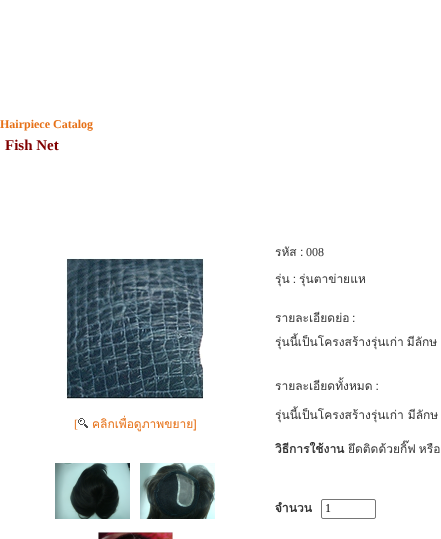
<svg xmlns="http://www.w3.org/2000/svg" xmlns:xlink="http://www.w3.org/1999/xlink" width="441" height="539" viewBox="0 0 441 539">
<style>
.cls-1{font:bold 12px Liberation Serif;fill:#e67016}
.cls-2{font:bold 15px Liberation Serif;fill:#800000}
.cls-3{font:12px Liberation Serif;fill:#e67016}
.cls-4{font:12px Loma;fill:#e67016}
.cls-5{font:12px Loma;fill:#333333}
.cls-6{font:12px Liberation Serif;fill:#333333}
.cls-7{font:bold 12px Loma;fill:#333333}
.cls-8{font:12px Liberation Serif;fill:#000000}
</style>
<rect width="100%" height="100%" fill="#ffffff"/>
<image xlink:href="image0.png" x="66" y="258" width="138" height="141"/>
<image xlink:href="image1.png" x="78" y="418" width="10" height="10"/>
<image xlink:href="image2.png" x="55" y="463" width="75" height="56"/>
<image xlink:href="image3.png" x="140" y="463" width="75" height="56"/>
<image xlink:href="image4.png" x="98" y="532" width="75" height="7"/>
<rect fill="none" stroke="#767676" x="321.5" y="499.5" width="54" height="19" rx="1.5"/>
<text class="cls-1" x="0" y="128">Hairpiece Catalog</text>
<text class="cls-2" x="5" y="150">Fish Net</text>
<text class="cls-3" x="74" y="428">[</text>
<text class="cls-4" x="92" y="428">คลิกเพื่อดูภาพขยาย]</text>
<text class="cls-5" x="275" y="256">รหัส</text>
<text class="cls-5" x="300" y="256">:</text>
<text class="cls-6" x="306" y="256">008</text>
<text class="cls-5" x="275" y="283" word-spacing="-1">รุ่น :</text>
<text class="cls-5" x="299" y="283">รุ่นตาข่ายแห</text>
<text class="cls-5" x="275" y="322">รายละเอียดย่อ</text>
<text class="cls-5" x="352" y="322">:</text>
<text class="cls-5" x="275" y="346" word-spacing="-1">รุ่นนี้เป็นโครงสร้างรุ่นเก่า มีลักษ</text>
<text class="cls-5" x="275" y="390" word-spacing="-1">รายละเอียดทั้งหมด :</text>
<text class="cls-5" x="275" y="419">รุ่นนี้เป็นโครงสร้างรุ่นเก่า มีลักษ</text>
<text class="cls-7" x="275" y="453">วิธีการใช้งาน</text>
<text class="cls-5" x="348" y="453" word-spacing="-1">ยึดติดด้วยกิ๊ฟ หรือ</text>
<text class="cls-7" x="275" y="512">จำนวน</text>
<text class="cls-8" x="325" y="512">1</text>
</svg>
